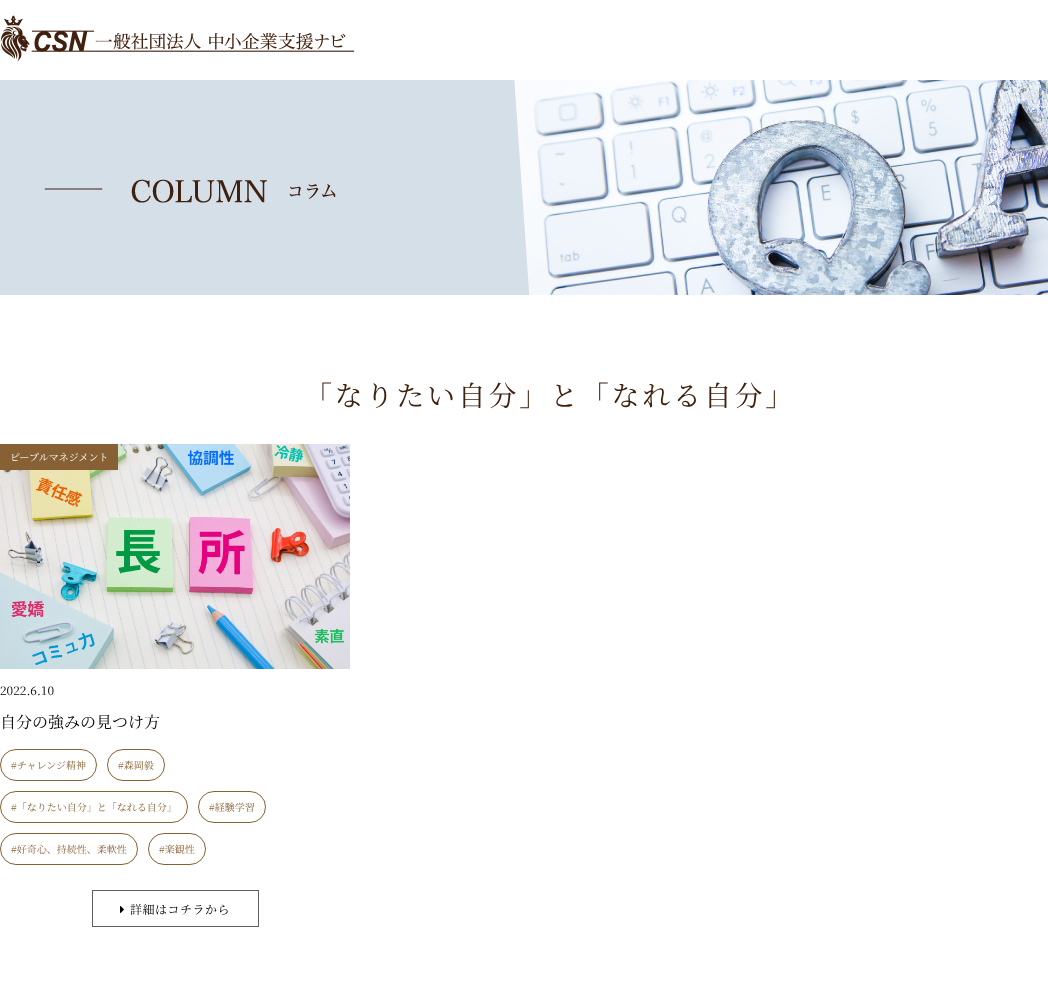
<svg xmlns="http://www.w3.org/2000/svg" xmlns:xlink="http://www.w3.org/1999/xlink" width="1048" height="989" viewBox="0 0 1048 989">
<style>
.cls-1{font:200 28px Noto Serif JP;letter-spacing:2.75px;fill:#40210f}
.cls-2{font:200 10px Noto Serif JP;fill:#ffffff}
.cls-3{font:200 12px Noto Serif JP;fill:#000000}
.cls-4{font:200 16px Noto Serif JP;fill:#000000}
.cls-5{font:200 10px Noto Serif JP;fill:#876134}
.cls-6{font:200 12px Noto Serif JP;letter-spacing:0.5px;fill:#000000}
</style>
<rect width="100%" height="100%" fill="#ffffff"/>
<image xlink:href="image0.png" x="0" y="15" width="355" height="47"/>
<image xlink:href="image1.png" x="0" y="80" width="1048" height="215"/>
<image xlink:href="image2.png" x="0" y="444" width="350" height="225"/>
<rect fill="#876134" x="0" y="444" width="118" height="26"/>
<rect fill="none" stroke="#876134" x="0.5" y="749.5" width="96" height="31" rx="15.5"/>
<rect fill="none" stroke="#876134" x="107.5" y="749.5" width="57" height="31" rx="15.5"/>
<rect fill="none" stroke="#876134" x="0.5" y="791.5" width="187" height="31" rx="15.5"/>
<rect fill="none" stroke="#876134" x="198.5" y="791.5" width="67" height="31" rx="15.5"/>
<rect fill="none" stroke="#876134" x="0.5" y="833.5" width="137" height="31" rx="15.5"/>
<rect fill="none" stroke="#876134" x="148.5" y="833.5" width="57" height="31" rx="15.5"/>
<rect fill="none" stroke="#606060" x="92.5" y="890.5" width="166" height="36"/>
<image xlink:href="image3.png" x="120" y="906" width="4" height="7"/>
<text class="cls-1" x="304" y="406">「なりたい自分」と「なれる自分」</text>
<text class="cls-2" x="10" y="461">ピープルマネジメント</text>
<text class="cls-3" x="0" y="695">2022.6.10</text>
<text class="cls-4" x="0" y="728">自分の強みの見つけ方</text>
<text class="cls-5" x="11" y="769">#チャレンジ精神</text>
<text class="cls-5" x="118" y="769">#森岡毅</text>
<text class="cls-5" x="11" y="811">#「なりたい自分」と「なれる自分」</text>
<text class="cls-5" x="209" y="811">#経験学習</text>
<text class="cls-5" x="11" y="853">#好奇心、持続性、柔軟性</text>
<text class="cls-5" x="159" y="853">#楽観性</text>
<text class="cls-6" x="130" y="914">詳細はコチラから</text>
</svg>
